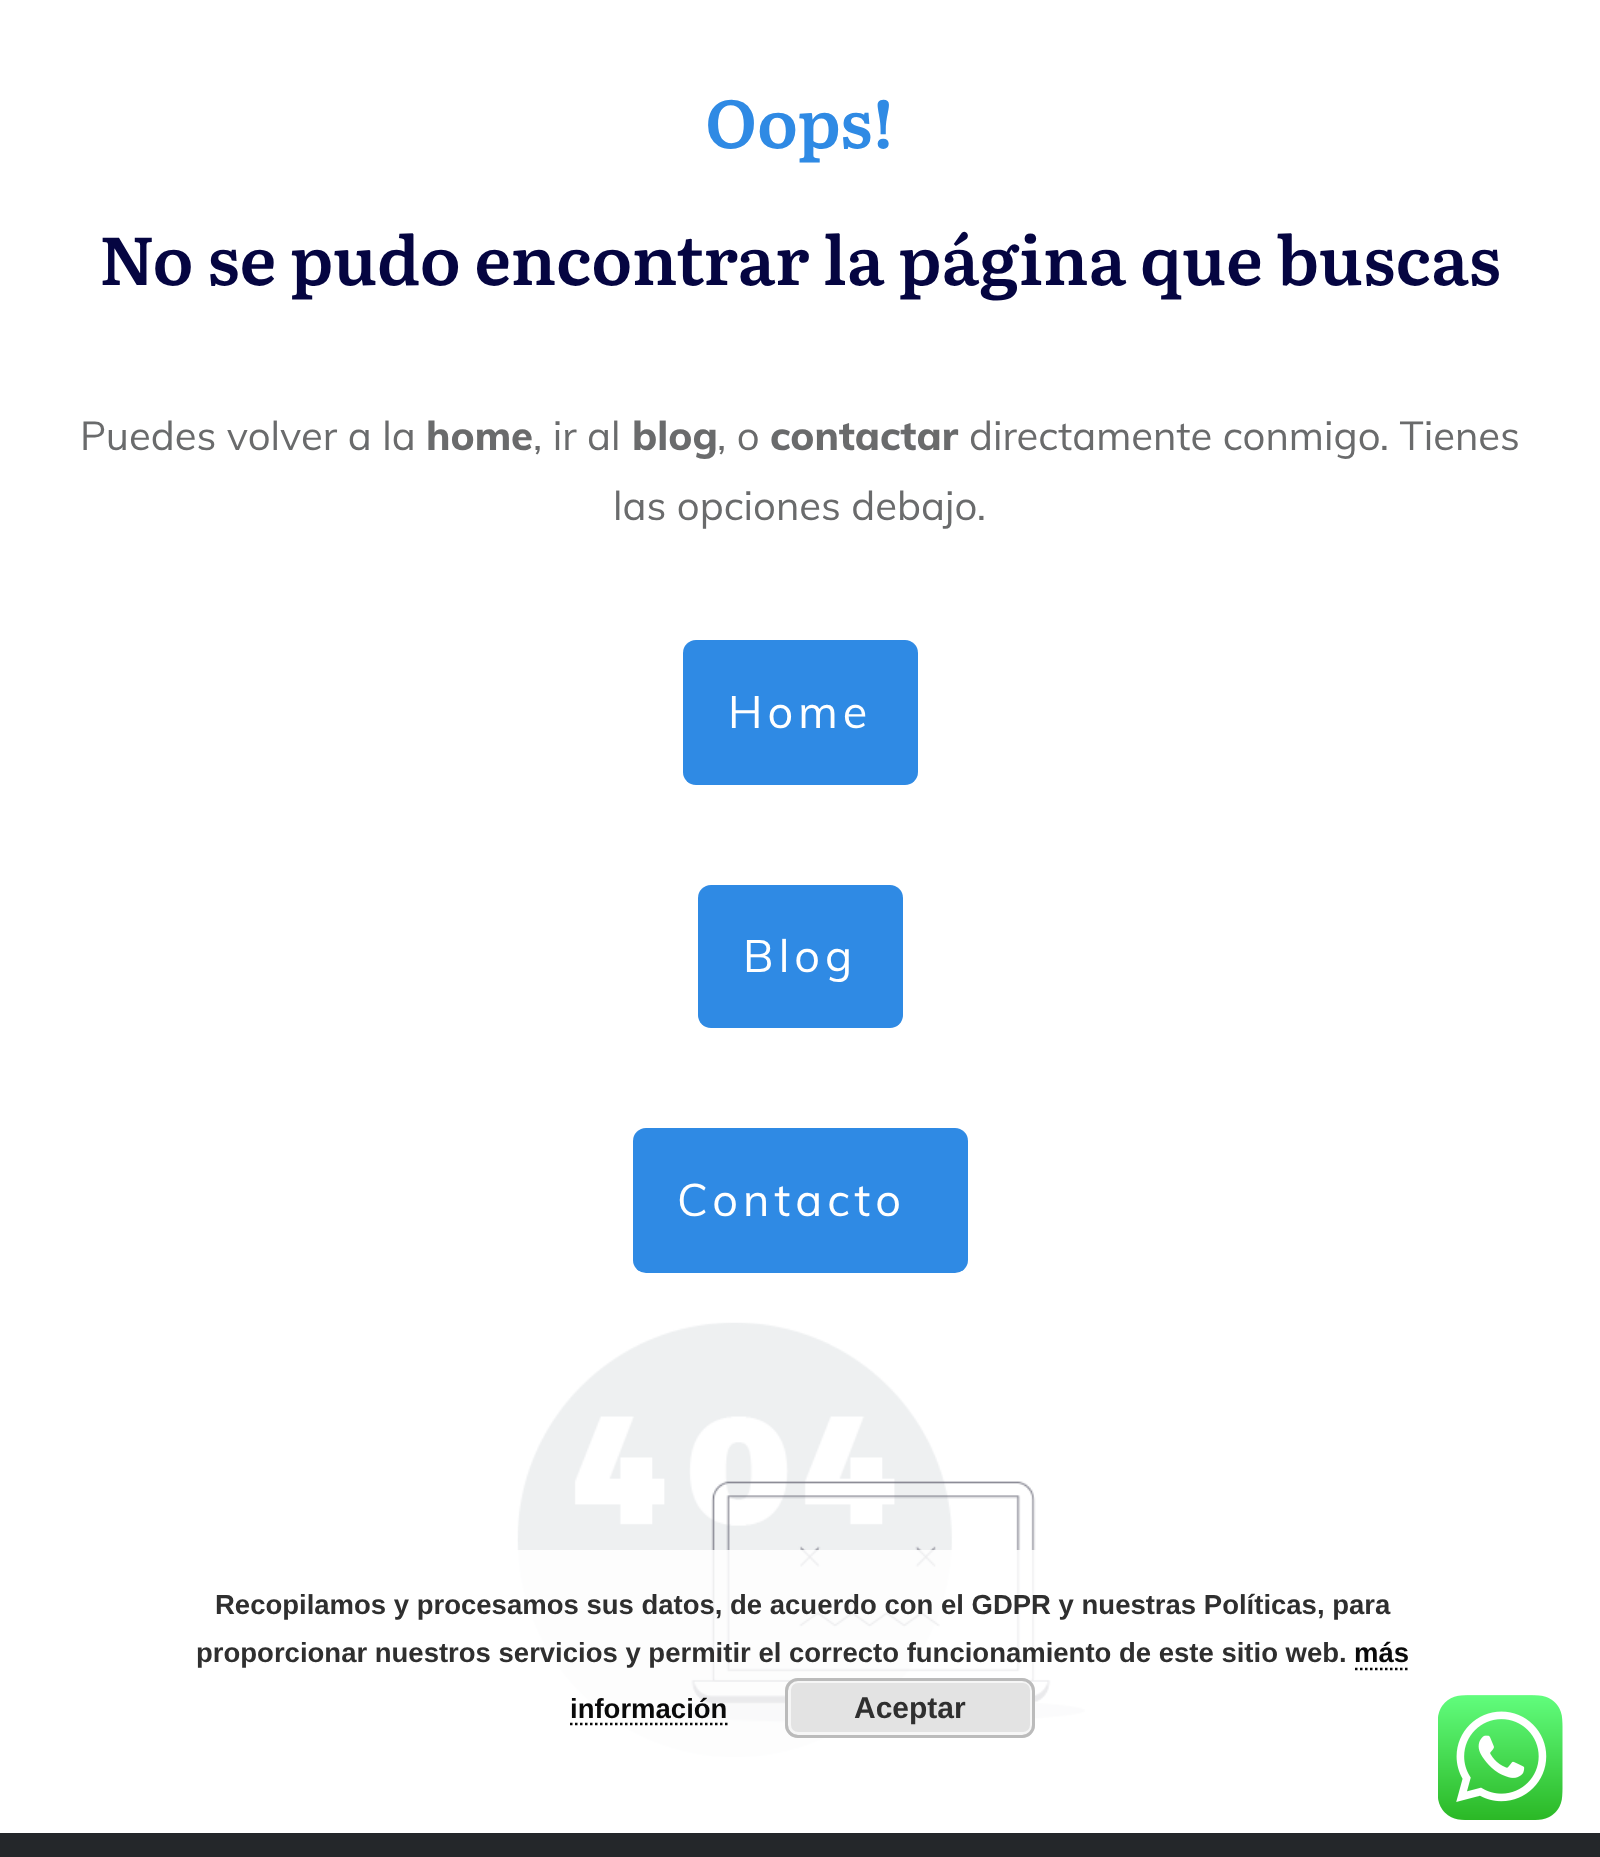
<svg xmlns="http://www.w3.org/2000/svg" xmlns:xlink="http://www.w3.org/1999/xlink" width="1600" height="1857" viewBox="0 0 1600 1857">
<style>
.cls-1{font:600 67.5px Literata;fill:#2f8ae4}
.cls-2{font:600 67.5px Literata;fill:#050541}
.cls-3{font:40px Muli;fill:#6a6b6c}
.cls-4{font:800 40px Muli;fill:#6a6b6c}
.cls-5{font:45px Muli;letter-spacing:5px;fill:#ffffff}
.cls-6{font:bold 27.5px Liberation Sans;fill:#2f2f2f}
.cls-7{font:bold 27.5px Liberation Sans;fill:#0a0a0a}
.cls-8{font:bold 30px Liberation Sans;fill:#2f2f2f}
</style>
<rect width="100%" height="100%" fill="#ffffff"/>
<rect fill="#2f8ae4" x="683" y="640" width="235" height="145" rx="13"/>
<rect fill="#2f8ae4" x="698" y="885" width="205" height="143" rx="13"/>
<rect fill="#2f8ae4" x="633" y="1128" width="335" height="145" rx="13"/>
<image xlink:href="image0.png" x="517" y="1322" width="568" height="436"/>
<rect fill="#24272a" x="0" y="1833" width="1600" height="24"/>
<rect fill="#ffffff" fill-opacity="0.85" x="80" y="1550" width="1445" height="233" rx="13"/>
<path fill="none" stroke="#0a0a0a" stroke-width="2.5" stroke-dasharray="2.5 2.5" d="M1355 1669H1410"/>
<path fill="none" stroke="#0a0a0a" stroke-width="2.5" stroke-dasharray="2.5 2.5" d="M570 1724H727.5"/>
<rect fill="#e3e3e3" x="785" y="1678" width="250" height="60" rx="13"/>
<rect fill="none" stroke="#f6f6f6" stroke-width="3" x="789.5" y="1681.5" width="242" height="52" rx="8.5"/>
<rect fill="none" stroke="#bbbbbb" stroke-width="3" x="786.5" y="1679.5" width="247" height="57" rx="11.5"/>
<image xlink:href="image1.png" x="1438" y="1695" width="125" height="125"/>
<text class="cls-1" x="705" y="148">Oops!</text>
<text class="cls-2" x="99" y="285">No se pudo encontrar la página que buscas</text>
<text class="cls-3" x="80" y="450">Puedes volver a la</text>
<text class="cls-4" x="426" y="450">home</text>
<text class="cls-3" x="533" y="450">, ir al</text>
<text class="cls-4" x="632" y="450">blog</text>
<text class="cls-3" x="717" y="450">, o</text>
<text class="cls-4" x="770" y="450">contactar</text>
<text class="cls-3" x="969" y="450">directamente conmigo. Tienes</text>
<text class="cls-3" x="613" y="520">las opciones debajo.</text>
<text class="cls-5" x="728" y="728">Home</text>
<text class="cls-5" x="743" y="972">Blog</text>
<text class="cls-5" x="677" y="1216">Contacto</text>
<text class="cls-6" x="215" y="1614">Recopilamos y procesamos sus datos, de acuerdo con el GDPR y nuestras Políticas, para</text>
<text class="cls-6" x="196" y="1662">proporcionar nuestros servicios y permitir el correcto funcionamiento de este sitio web.</text>
<text class="cls-7" x="1354" y="1662">más</text>
<text class="cls-7" x="570" y="1718">información</text>
<text class="cls-8" x="854" y="1718">Aceptar</text>
</svg>
